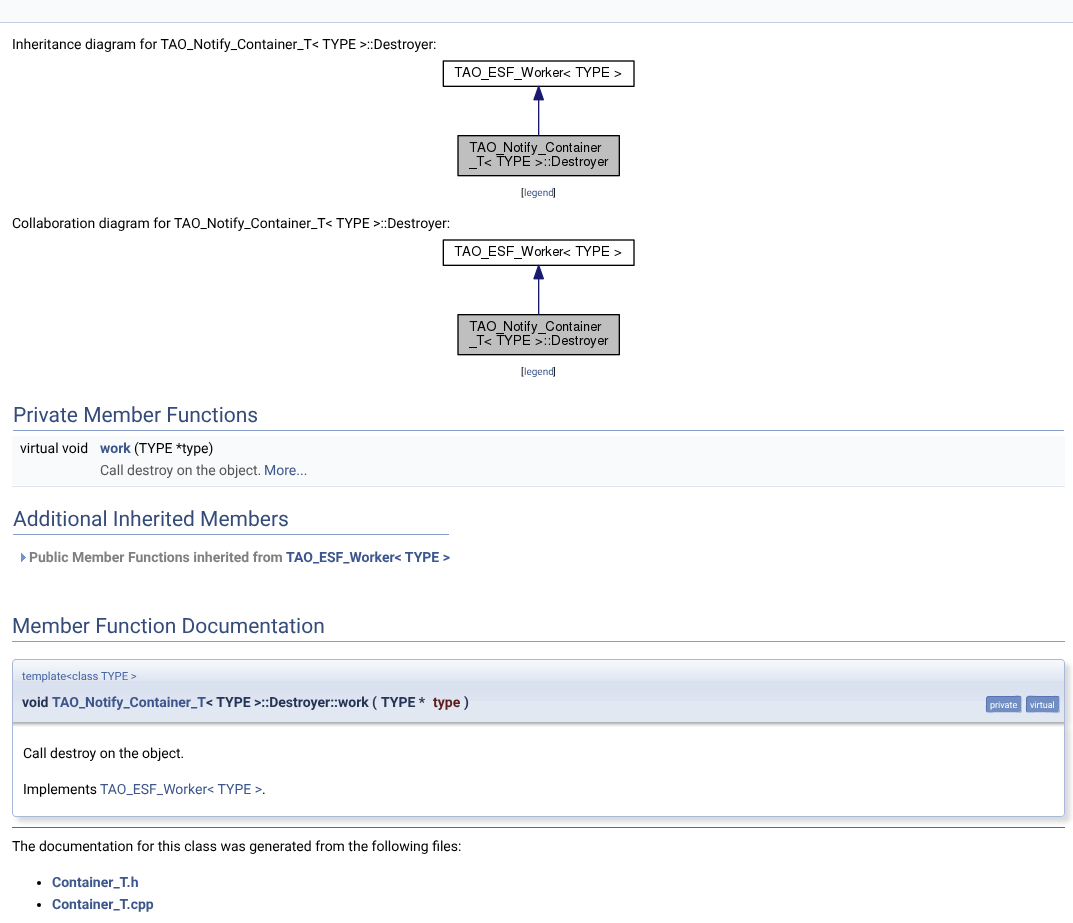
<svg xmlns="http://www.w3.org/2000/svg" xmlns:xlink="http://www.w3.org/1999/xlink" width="1073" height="923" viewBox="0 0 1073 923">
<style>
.cls-1{font:14px Roboto;fill:#000000}
.cls-2{font:10px Roboto;fill:#000000}
.cls-3{font:10px Roboto;fill:#3d578c}
.cls-4{font:21px Roboto;fill:#354c7b}
.cls-5{font:bold 14px Roboto;fill:#3d578c}
.cls-6{font:14px Roboto;fill:#555555}
.cls-7{font:14px Roboto;fill:#3d578c}
.cls-8{font:bold 14px Roboto;fill:#808080}
.cls-9{font:11.25px Roboto;fill:#4665a2}
.cls-10{font:bold 14px Roboto;fill:#253555}
.cls-11{font:bold 14px Roboto;fill:#602020}
.cls-12{font:9px Roboto;fill:#ffffff}
</style>
<rect width="100%" height="100%" fill="#ffffff"/>
<rect fill="#f9fafc" x="0" y="0" width="1073" height="22"/>
<rect fill="#c4cfe5" x="0" y="22" width="1073" height="1"/>
<image xlink:href="image0.png" x="442" y="60" width="193" height="117"/>
<image xlink:href="image0.png" x="442" y="239" width="193" height="117"/>
<rect fill="#879ecb" x="13" y="430" width="1051" height="1"/>
<rect fill="#f9fafc" x="12" y="436" width="1053" height="23"/>
<rect fill="#f9fafc" x="12" y="459" width="1053" height="26"/>
<rect fill="#dee4f0" x="12" y="486" width="1053" height="1"/>
<rect fill="#879ecb" x="13" y="534" width="436" height="1"/>
<image xlink:href="image1.png" x="21" y="553" width="5" height="9"/>
<rect fill="#879ecb" x="12" y="641" width="1053" height="1"/>
<rect fill="#000000" fill-opacity="0.15" filter="blur(2.5px)" x="17" y="664" width="1053" height="63" rx="4"/>
<path fill="#e2e8f2" d="M16 659H1061C1063 659 1065 661 1065 663V722H12V663C12 661 14 659 16 659Z"/>
<image xlink:href="image2.png" x="12" y="660" width="1053" height="41"/>
<path fill="#a8b8d9" fill-rule="evenodd" d="M16 659H1061C1063 659 1065 661 1065 663V722H12V663C12 661 14 659 16 659ZM16 660H1061C1063 660 1064 661 1064 663V722H13V663C13 661 14 660 16 660Z"/>
<rect fill="#728dc1" x="986" y="696" width="36" height="17" rx="3"/>
<path fill="none" stroke="#c4cfe5" d="M1021 697C1022 698.5 1021.5 703 1021.5 704.5C1021.5 713 1022.5 712.5 1014 712.5H994C993 712.5 989 713.5 987 712"/>
<path fill="none" stroke="#5373b4" d="M987 712C986 710.5 986.5 706 986.5 704.5C986.5 696 985.5 696.5 994 696.5H1014C1015 696.5 1019 695.5 1021 697"/>
<rect fill="#728dc1" x="1026" y="696" width="34" height="17" rx="3"/>
<path fill="none" stroke="#c4cfe5" d="M1059 697C1060 698.5 1059.5 703 1059.5 704.5C1059.5 715 1059.5 712.5 1047.5 712.5H1033.5C1032.5 712.5 1028.5 713 1027 712"/>
<path fill="none" stroke="#5373b4" d="M1027 712C1026 710.5 1026.5 706 1026.5 704.5C1026.5 694 1026.5 696.5 1038.5 696.5H1052.5C1053.5 696.5 1057.5 696 1059 697"/>
<rect fill="#000000" fill-opacity="0.15" filter="blur(2.5px)" x="17" y="727" width="1053" height="95" rx="4"/>
<path fill="#ffffff" d="M12 722H1065V813C1065 815 1063 817 1061 817H16C14 817 12 815 12 813Z"/>
<image xlink:href="image3.png" x="13" y="722" width="1051" height="5"/>
<path fill="#a8b8d9" fill-rule="evenodd" d="M12 722H1065V813C1065 815 1063 817 1061 817H16C14 817 12 815 12 813ZM13 722H1064V813C1064 815 1063 816 1061 816H16C14 816 13 815 13 813Z"/>
<rect fill="#4a6aaa" x="12" y="827" width="1053" height="1"/>
<circle fill="#000000" cx="39" cy="883" r="2"/>
<circle fill="#000000" cx="39" cy="905" r="2"/>
<text class="cls-1" x="12" y="49">Inheritance diagram for TAO_Notify_Container_T&lt; TYPE &gt;::Destroyer:</text>
<text class="cls-2" x="521" y="196">[</text>
<text class="cls-3" x="524" y="196">legend</text>
<text class="cls-2" x="553" y="196">]</text>
<text class="cls-1" x="12" y="228">Collaboration diagram for TAO_Notify_Container_T&lt; TYPE &gt;::Destroyer:</text>
<text class="cls-2" x="521" y="375">[</text>
<text class="cls-3" x="524" y="375">legend</text>
<text class="cls-2" x="553" y="375">]</text>
<text class="cls-4" x="13" y="422">Private Member Functions</text>
<text class="cls-1" x="20" y="453">virtual void</text>
<text class="cls-5" x="100" y="453">work</text>
<text class="cls-1" x="134" y="453">(TYPE *type)</text>
<text class="cls-6" x="100" y="475">Call destroy on the object.</text>
<text class="cls-7" x="264" y="475">More...</text>
<text class="cls-4" x="13" y="526">Additional Inherited Members</text>
<text class="cls-8" x="29" y="562">Public Member Functions inherited from</text>
<text class="cls-5" x="286" y="562">TAO_ESF_Worker&lt; TYPE &gt;</text>
<text class="cls-4" x="12" y="633">Member Function Documentation</text>
<text class="cls-9" x="22" y="680">template&lt;class TYPE &gt;</text>
<text class="cls-10" x="22" y="707">void</text>
<text class="cls-5" x="52" y="707">TAO_Notify_Container_T</text>
<text class="cls-10" x="206" y="707">&lt; TYPE &gt;::Destroyer::work</text>
<text class="cls-10" x="372" y="707">(</text>
<text class="cls-10" x="381" y="707">TYPE *</text>
<text class="cls-11" x="433" y="707">type</text>
<text class="cls-10" x="464" y="707">)</text>
<text class="cls-12" x="990" y="708">private</text>
<text class="cls-12" x="1030" y="708">virtual</text>
<text class="cls-1" x="23" y="758">Call destroy on the object.</text>
<text class="cls-1" x="23" y="794">Implements</text>
<text class="cls-7" x="100" y="794">TAO_ESF_Worker&lt; TYPE &gt;</text>
<text class="cls-1" x="262" y="794">.</text>
<text class="cls-1" x="12" y="851">The documentation for this class was generated from the following files:</text>
<text class="cls-5"><tspan x="52" y="887">Container_T.h</tspan><tspan x="52" y="909">Container_T.cpp</tspan></text>
</svg>
